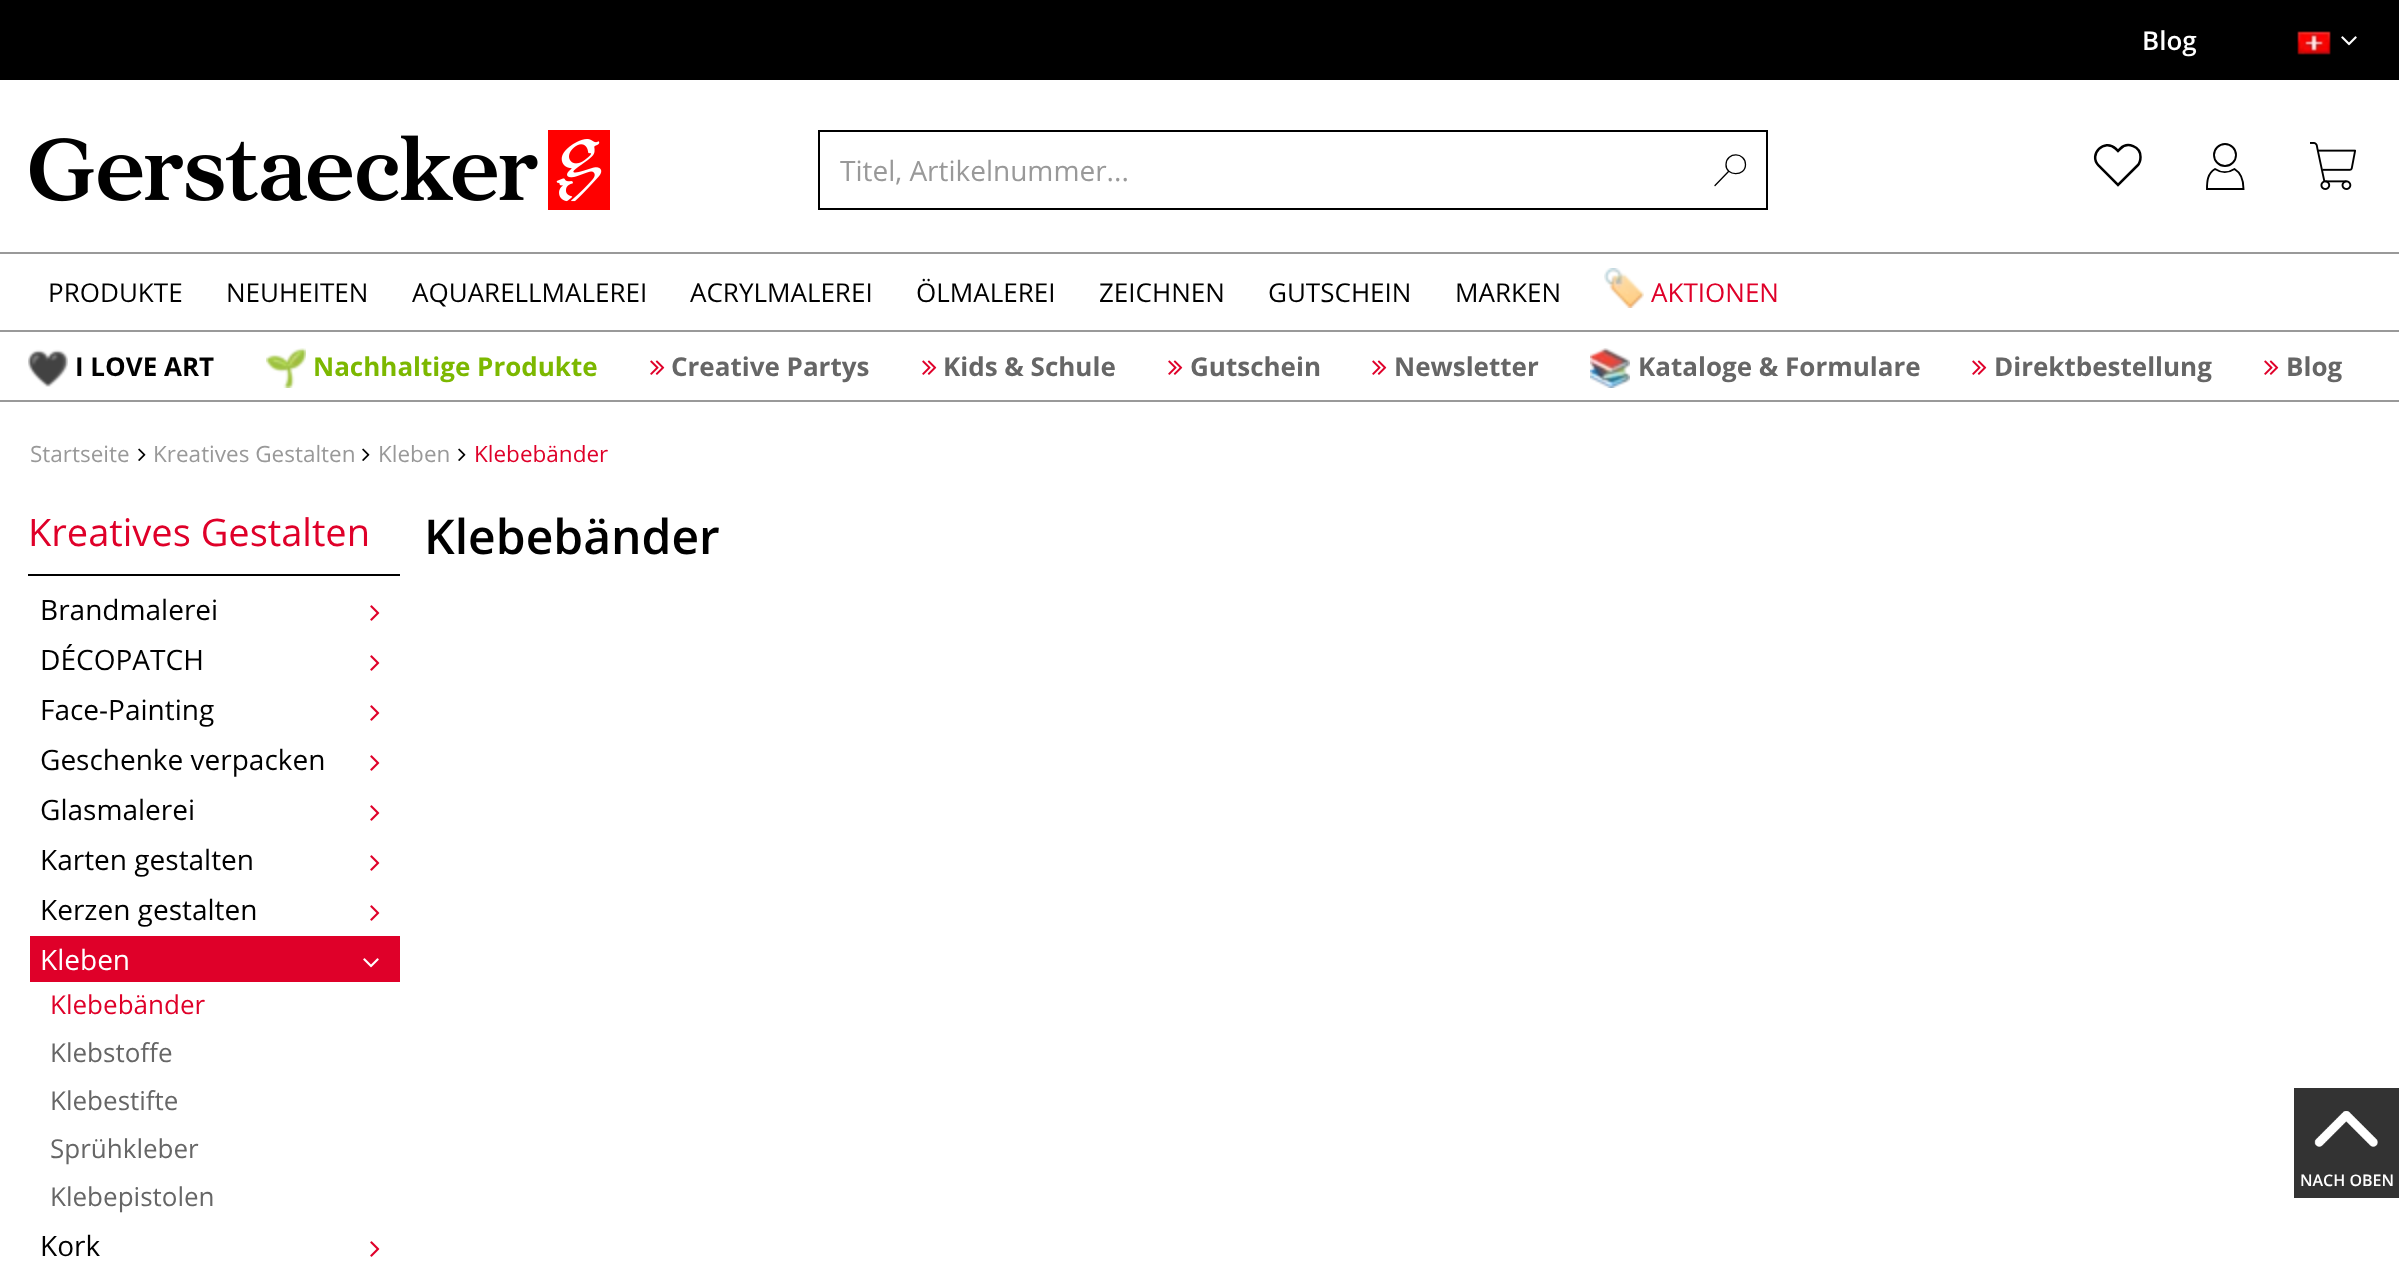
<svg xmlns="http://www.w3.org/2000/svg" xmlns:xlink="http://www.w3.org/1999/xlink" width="2399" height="1261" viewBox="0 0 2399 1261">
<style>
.cls-1{font:600 26px Open Sans;fill:#ffffff}
.cls-2{font:28px Open Sans;fill:#999999}
.cls-3{font:26px Open Sans;fill:#000000}
.cls-4{font:26px Open Sans;fill:#df0029}
.cls-5{font:bold 26px Open Sans;fill:#000000}
.cls-6{font:bold 26px Open Sans;fill:#7cb800}
.cls-7{font:bold 26px Open Sans;fill:#666666}
.cls-8{font:22.5px Open Sans;fill:#999999}
.cls-9{font:22.5px Open Sans;fill:#df0029}
.cls-10{font:38px Open Sans;fill:#df0029}
.cls-11{font:28px Open Sans;fill:#000000}
.cls-12{font:28px Open Sans;fill:#ffffff}
.cls-13{font:26px Open Sans;fill:#666666}
.cls-14{font:600 48px Open Sans;fill:#000000}
.cls-15{font:600 16px Open Sans;fill:#ffffff}
</style>
<rect width="100%" height="100%" fill="#ffffff"/>
<rect fill="#000000" x="0" y="0" width="2399" height="80"/>
<image xlink:href="image0.png" x="2297" y="31" width="34" height="24"/>
<image xlink:href="image1.png" x="2341" y="36" width="16" height="10"/>
<image xlink:href="image2.png" x="30" y="130" width="580" height="80"/>
<rect fill="#000000" x="818" y="130" width="950" height="2"/>
<rect fill="#000000" x="818" y="208" width="874" height="2"/>
<rect fill="#000000" x="818" y="130" width="2" height="80"/>
<path fill="none" stroke="#000000" stroke-width="1.3" d="M1745.5 164.5C1745.5 177 1725.5 176.5 1726 164.5C1726.5 151.5 1745.5 152 1745.5 164.5Z"/>
<path fill="none" stroke="#000000" stroke-width="1.3" stroke-linecap="round" d="M1715 185.5L1728.5 171.5"/>
<rect fill="#000000" x="1766" y="130" width="2" height="80"/>
<rect fill="#000000" x="1692" y="208" width="76" height="2"/>
<path fill="none" stroke="#000000" stroke-width="2.5" d="M2140.5 157C2140.5 146.5 2127.5 141.5 2120.5 148.5L2118 151L2115.5 148.5C2104.5 138 2088 154.5 2098.5 165.5L2118 185L2137.5 165.5C2139.5 163.5 2140.5 160.5 2140.5 157Z"/>
<circle fill="none" stroke="#000000" stroke-width="1.9" cx="2225" cy="155" r="11"/>
<path fill="none" stroke="#000000" stroke-width="1.9" d="M2234.5 169C2228.5 173 2221 173 2215 169C2207.5 173.5 2207 181 2207 189H2243.5C2243.5 181 2242 173.5 2234.5 169Z"/>
<image xlink:href="image3.png" x="2310" y="142" width="46" height="48"/>
<rect fill="#999999" x="0" y="252" width="2399" height="2"/>
<rect fill="#999999" x="0" y="330" width="2399" height="2"/>
<image xlink:href="image4.png" x="1604" y="268" width="40" height="40"/>
<rect fill="#999999" x="0" y="400" width="2399" height="2"/>
<image xlink:href="image5.png" x="28" y="349" width="40" height="38"/>
<image xlink:href="image6.png" x="266" y="348" width="40" height="40"/>
<image xlink:href="image7.png" x="650" y="360" width="15" height="15"/>
<image xlink:href="image7.png" x="922" y="360" width="15" height="15"/>
<image xlink:href="image7.png" x="1168" y="360" width="15" height="15"/>
<image xlink:href="image7.png" x="1372" y="360" width="15" height="15"/>
<image xlink:href="image8.png" x="1590" y="348" width="40" height="40"/>
<image xlink:href="image7.png" x="1972" y="360" width="15" height="15"/>
<image xlink:href="image7.png" x="2264" y="360" width="15" height="15"/>
<image xlink:href="image9.png" x="138" y="448" width="8" height="13"/>
<image xlink:href="image9.png" x="362" y="448" width="8" height="13"/>
<image xlink:href="image9.png" x="458" y="448" width="8" height="13"/>
<rect fill="#000000" x="28" y="574" width="372" height="2"/>
<image xlink:href="image10.png" x="370" y="605" width="10" height="16"/>
<image xlink:href="image10.png" x="370" y="655" width="10" height="16"/>
<image xlink:href="image10.png" x="370" y="705" width="10" height="16"/>
<image xlink:href="image10.png" x="370" y="755" width="10" height="16"/>
<image xlink:href="image10.png" x="370" y="805" width="10" height="16"/>
<image xlink:href="image10.png" x="370" y="855" width="10" height="16"/>
<image xlink:href="image10.png" x="370" y="905" width="10" height="16"/>
<rect fill="#df0029" x="30" y="936" width="370" height="46"/>
<image xlink:href="image11.png" x="363" y="958" width="16" height="10"/>
<image xlink:href="image10.png" x="370" y="1241" width="10" height="16"/>
<rect fill="#333333" x="2294" y="1088" width="105" height="110"/>
<image xlink:href="image12.png" x="2314" y="1111" width="64" height="36"/>
<text class="cls-1" x="2142" y="50">Blog</text>
<text class="cls-2" x="840" y="181">Titel, Artikelnummer...</text>
<text class="cls-3" x="48" y="302">PRODUKTE</text>
<text class="cls-3" x="226" y="302">NEUHEITEN</text>
<text class="cls-3" x="412" y="302">AQUARELLMALEREI</text>
<text class="cls-3" x="690" y="302">ACRYLMALEREI</text>
<text class="cls-3" x="916" y="302">ÖLMALEREI</text>
<text class="cls-3" x="1099" y="302">ZEICHNEN</text>
<text class="cls-3" x="1268" y="302">GUTSCHEIN</text>
<text class="cls-3" x="1455" y="302">MARKEN</text>
<text class="cls-4" x="1651" y="302">AKTIONEN</text>
<text class="cls-5" x="75" y="376">I LOVE ART</text>
<text class="cls-6" x="313" y="376">Nachhaltige Produkte</text>
<text class="cls-7" x="671" y="376">Creative Partys</text>
<text class="cls-7" x="943" y="376">Kids &amp; Schule</text>
<text class="cls-7" x="1190" y="376">Gutschein</text>
<text class="cls-7" x="1394" y="376">Newsletter</text>
<text class="cls-7" x="1638" y="376">Kataloge &amp; Formulare</text>
<text class="cls-7" x="1994" y="376">Direktbestellung</text>
<text class="cls-7" x="2286" y="376">Blog</text>
<text class="cls-8" x="30" y="462">Startseite</text>
<text class="cls-8" x="153" y="462">Kreatives Gestalten</text>
<text class="cls-8" x="378" y="462">Kleben</text>
<text class="cls-9" x="474" y="462">Klebebänder</text>
<text class="cls-10" x="28" y="546">Kreatives Gestalten</text>
<text class="cls-11"><tspan x="40" y="620">Brandmalerei</tspan><tspan x="40" y="670">DÉCOPATCH</tspan><tspan x="40" y="720">Face-Painting</tspan><tspan x="40" y="770">Geschenke verpacken</tspan><tspan x="40" y="820">Glasmalerei</tspan><tspan x="40" y="870">Karten gestalten</tspan><tspan x="40" y="920">Kerzen gestalten</tspan></text>
<text class="cls-12" x="40" y="970">Kleben</text>
<text class="cls-4" x="50" y="1014">Klebebänder</text>
<text class="cls-13"><tspan x="50" y="1062">Klebstoffe</tspan><tspan x="50" y="1110">Klebestifte</tspan><tspan x="50" y="1158">Sprühkleber</tspan><tspan x="50" y="1206">Klebepistolen</tspan></text>
<text class="cls-11" x="40" y="1256">Kork</text>
<text class="cls-14" x="424" y="554">Klebebänder</text>
<text class="cls-15" x="2300" y="1186">NACH OBEN</text>
</svg>
